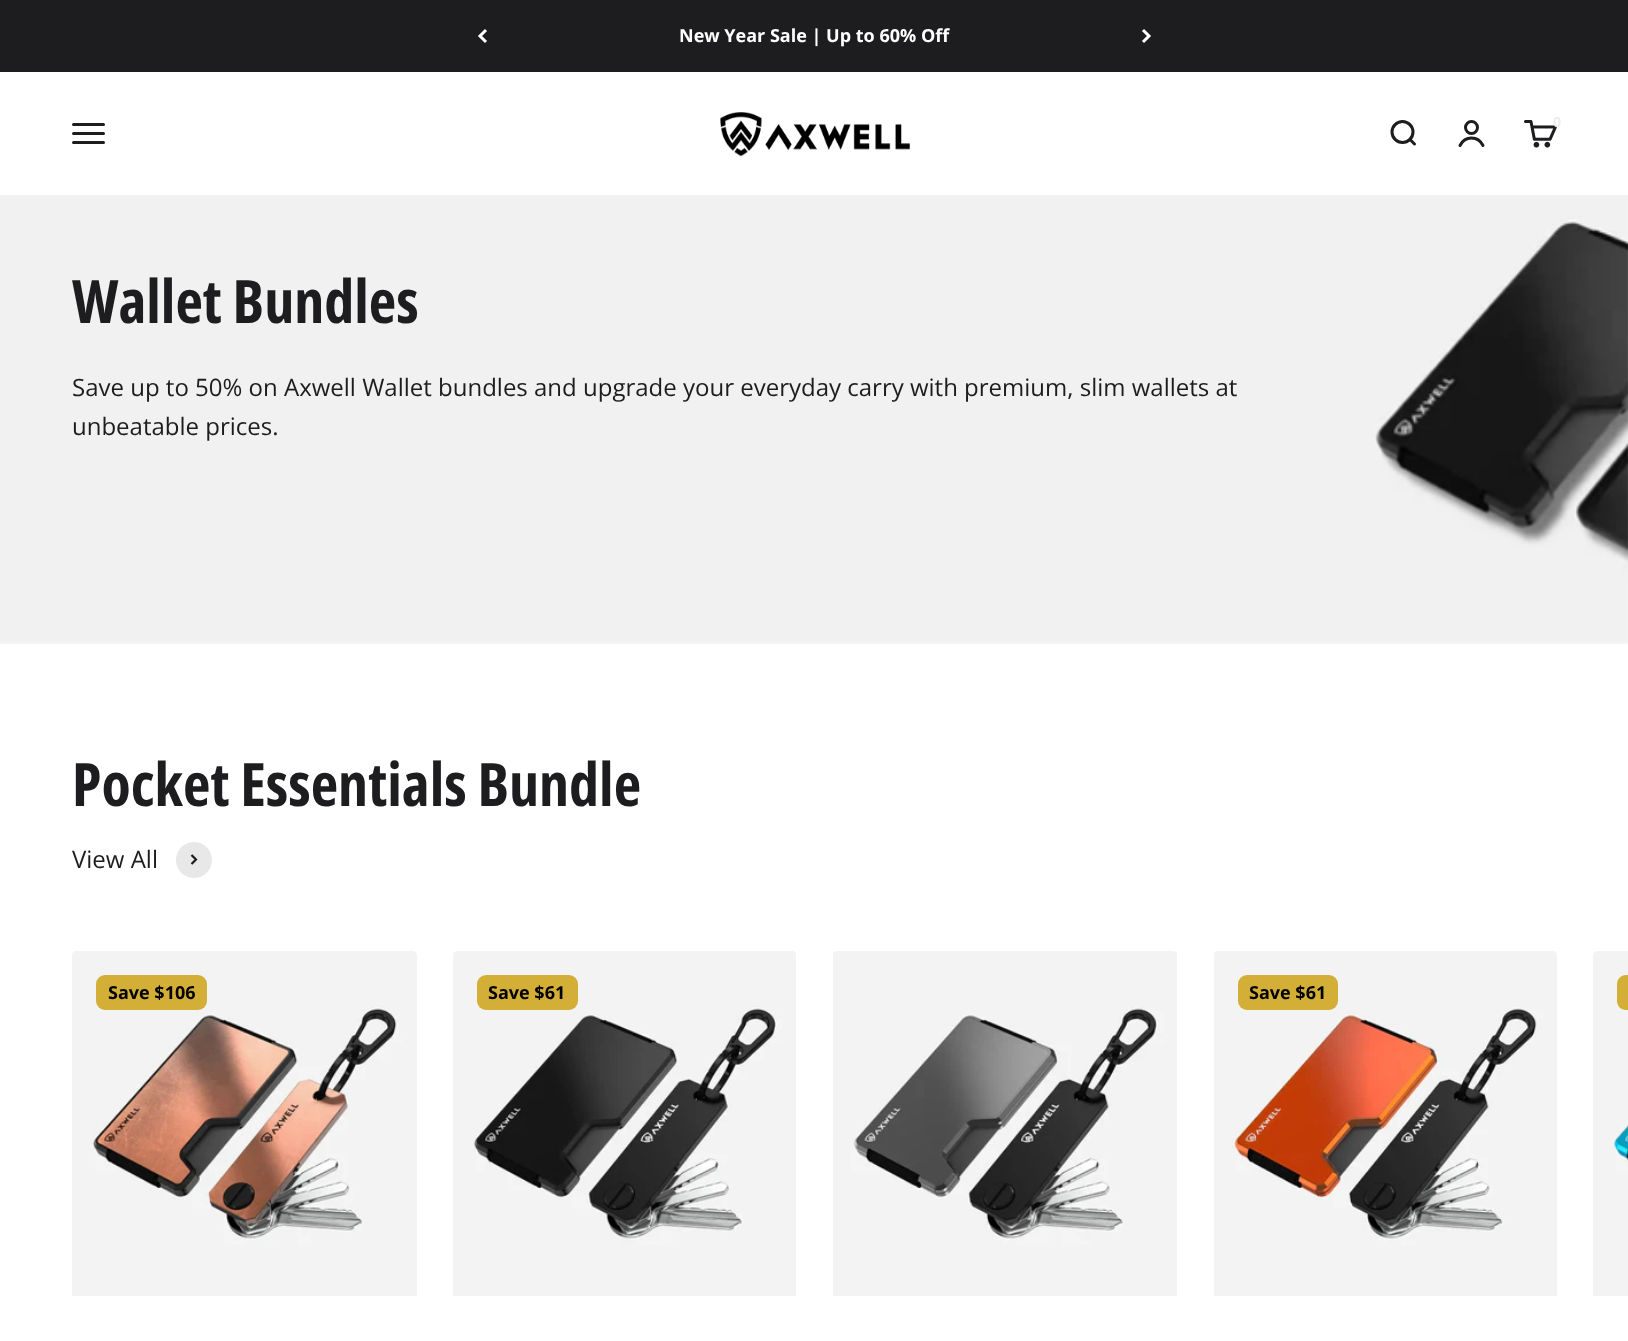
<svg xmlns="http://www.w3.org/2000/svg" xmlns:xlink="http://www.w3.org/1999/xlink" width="1628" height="1341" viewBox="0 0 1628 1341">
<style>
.cls-1{font:bold 18px Open Sans;fill:#ffffff}
.cls-2{font:bold 14px Open Sans;fill:#ededee}
.cls-3{font:bold 60px Open Sans Condensed;fill:#1d1d1f}
.cls-4{font:24px Open Sans;fill:#1d1d1f}
.cls-5{font:bold 18px Open Sans;fill:#000000}
</style>
<rect width="100%" height="100%" fill="#ffffff"/>
<rect fill="#1d1d1f" x="0" y="0" width="1628" height="72"/>
<path fill="none" stroke="#ffffff" stroke-width="3" d="M486 30L480 36L486 42"/>
<path fill="none" stroke="#ffffff" stroke-width="3" d="M1143 42L1149 36L1143 30"/>
<path fill="none" stroke="#1d1d1f" stroke-width="3" stroke-linecap="round" d="M73.5 124.5H103.5M73.5 133.5H103.5M73.5 142.5H103.5"/>
<image xlink:href="image0.png" x="720" y="112" width="190" height="45"/>
<circle fill="none" stroke="#1d1d1f" stroke-width="3" cx="1402.5" cy="132" r="10.5"/>
<path fill="none" stroke="#1d1d1f" stroke-width="3" stroke-linecap="round" stroke-linejoin="round" d="M1410 139.5L1414.5 144"/>
<circle fill="none" stroke="#1d1d1f" stroke-width="3" cx="1471.5" cy="127.5" r="6"/>
<path fill="none" stroke="#1d1d1f" stroke-width="3" stroke-linecap="round" d="M1460 145.5C1465 135.5 1478 135.5 1483 145.5"/>
<image xlink:href="image1.png" x="1524" y="120" width="33" height="28"/>
<image xlink:href="image2.png" x="0" y="195" width="1628" height="449"/>
<circle fill="#e8e8e9" cx="194" cy="860" r="18"/>
<path fill="none" stroke="#1d1d1f" stroke-width="2.2" d="M191.5 864L196 859.5L191.5 855"/>
<image xlink:href="image3.png" x="72" y="951" width="345" height="345"/>
<rect fill="#d4af37" x="96" y="975" width="111" height="35" rx="9"/>
<image xlink:href="image4.png" x="453" y="951" width="343" height="345"/>
<rect fill="#d4af37" x="477" y="975" width="101" height="35" rx="9"/>
<image xlink:href="image5.png" x="833" y="951" width="344" height="345"/>
<image xlink:href="image6.png" x="1214" y="951" width="343" height="345"/>
<rect fill="#d4af37" x="1238" y="975" width="100" height="35" rx="9"/>
<image xlink:href="image7.png" x="1593" y="951" width="35" height="345"/>
<path fill="#d4af37" d="M1626 975H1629V1010H1626C1621 1010 1617 1006 1617 1001V984C1617 979 1621 975 1626 975Z"/>
<text class="cls-1" x="679" y="42">New Year Sale | Up to 60% Off</text>
<text class="cls-2" x="1553" y="127">0</text>
<text class="cls-3" x="72" y="323">Wallet Bundles</text>
<text class="cls-4"><tspan x="72" y="396">Save up to 50% on Axwell Wallet bundles and upgrade your everyday carry with premium, slim wallets at</tspan><tspan x="72" y="435">unbeatable prices.</tspan></text>
<text class="cls-3" x="72" y="806">Pocket Essentials Bundle</text>
<text class="cls-4" x="72" y="868">View All</text>
<text class="cls-5" x="108" y="999">Save $106</text>
<text class="cls-5" x="488" y="999">Save $61</text>
<text class="cls-5" x="1249" y="999">Save $61</text>
</svg>
